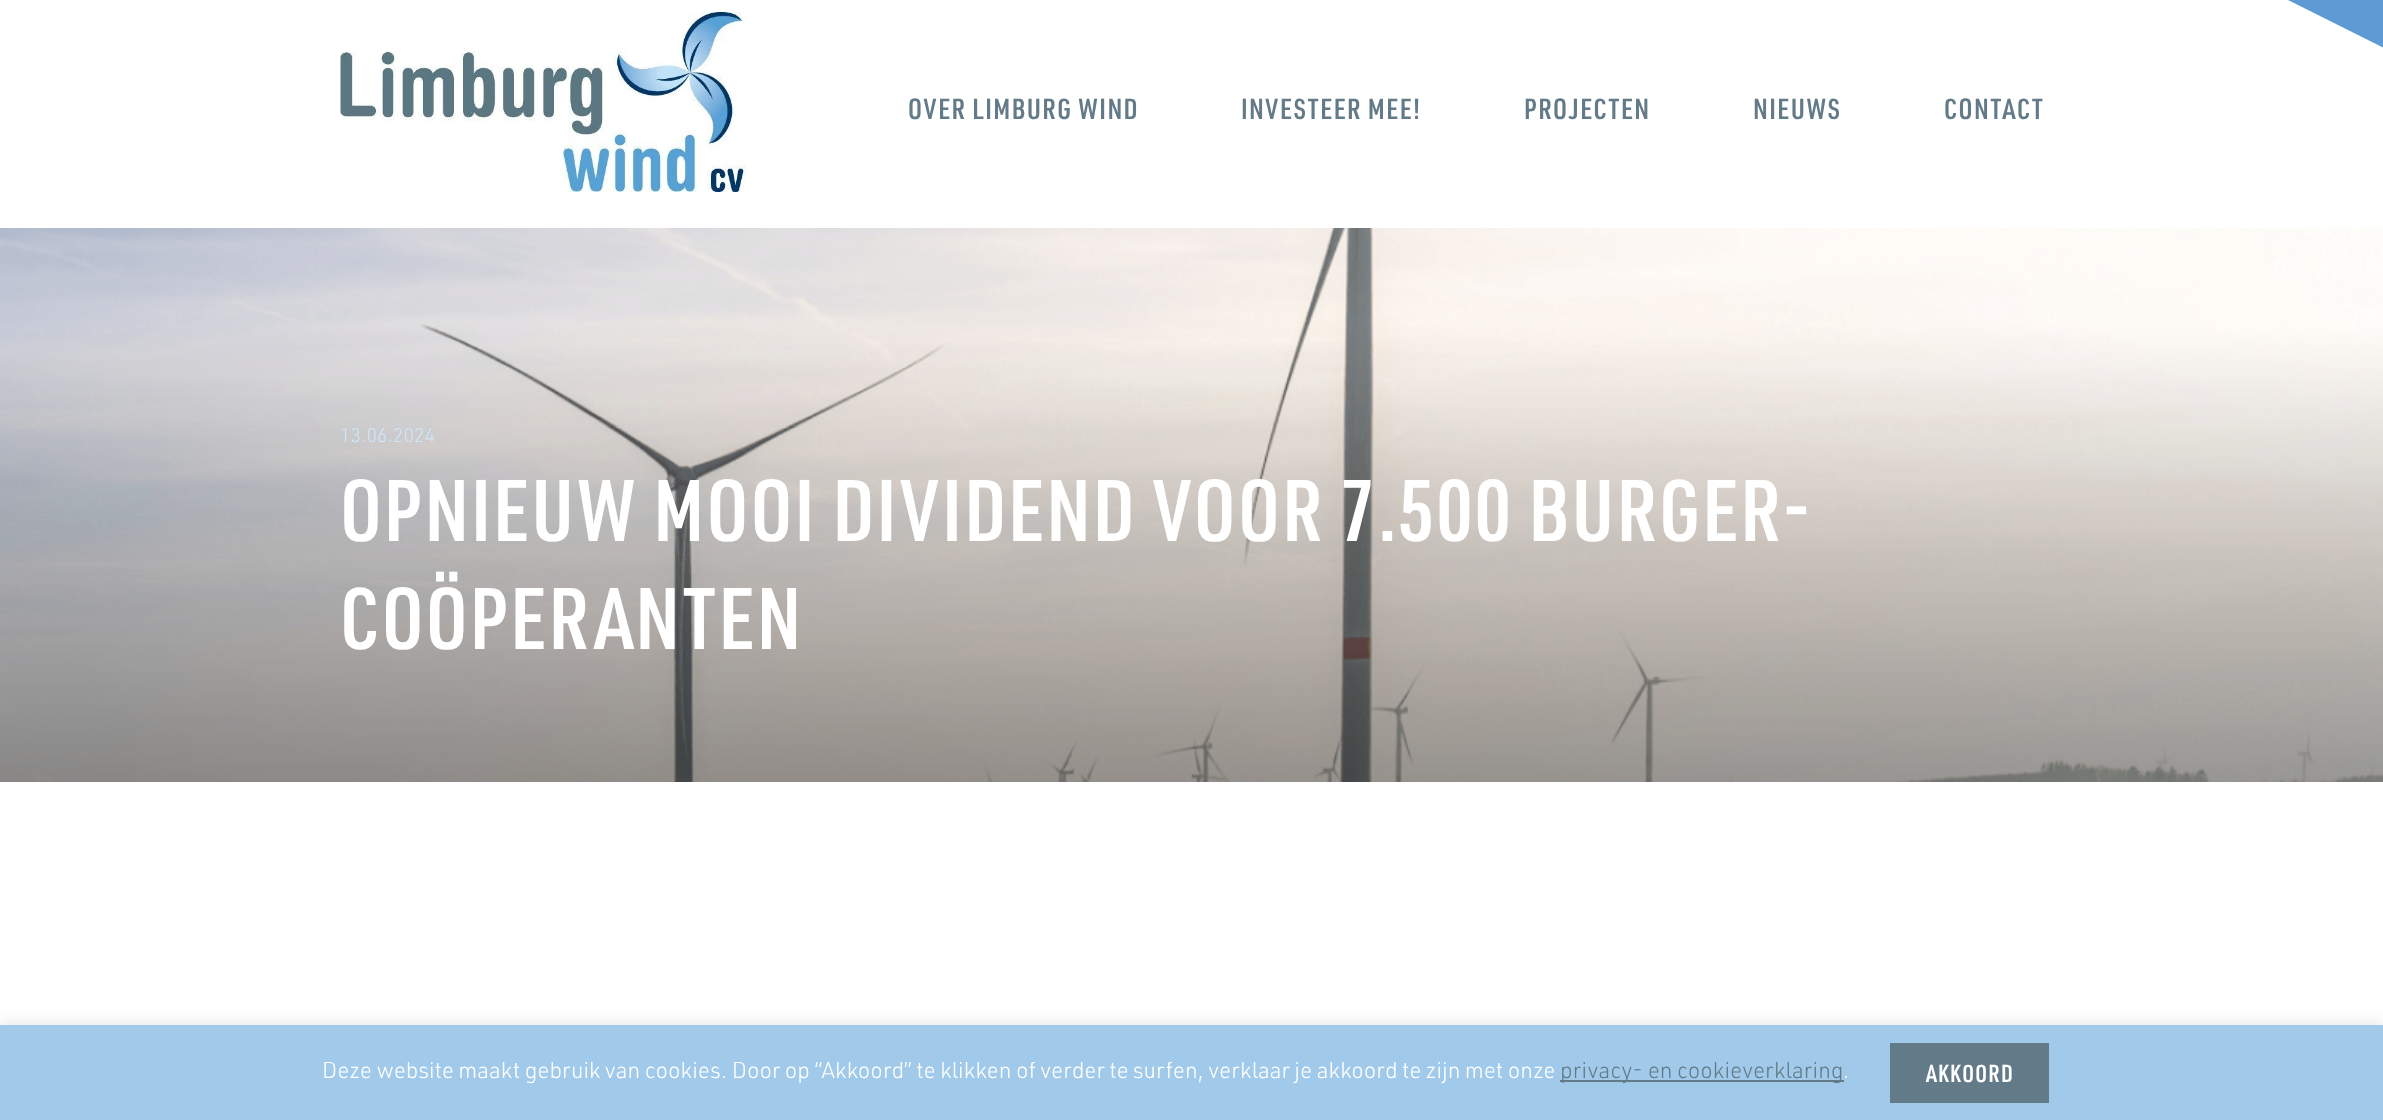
<svg xmlns="http://www.w3.org/2000/svg" xmlns:xlink="http://www.w3.org/1999/xlink" width="2383" height="1120" viewBox="0 0 2383 1120">
<style>
.cls-1{font:600 28.5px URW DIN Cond;letter-spacing:1.4px;fill:#637b88}
.cls-2{font:300 19.5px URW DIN;fill:#cee6f8}
.cls-3{font:600 85.5px URW DIN Cond;letter-spacing:2.15px;fill:#ffffff}
.cls-4{font:300 22.5px URW DIN;fill:#ffffff}
.cls-5{font:300 22.5px URW DIN;fill:#637b88}
.cls-6{font:600 24px URW DIN Cond;letter-spacing:1.25px;fill:#ffffff}
</style>
<rect width="100%" height="100%" fill="#ffffff"/>
<path fill="#5e9ad3" fill-rule="evenodd" d="M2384 0V48L2288 0Z"/>
<image xlink:href="image0.png" x="340" y="12" width="407" height="180"/>
<image xlink:href="image1.png" x="0" y="228" width="2383" height="554"/>
<rect fill="#acabab" fill-opacity="0.3" filter="blur(7.5px)" x="0" y="1023" width="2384" height="96"/>
<rect fill="#a1caea" x="0" y="1025" width="2383" height="95"/>
<rect fill="#637b88" x="1560" y="1080" width="284" height="2"/>
<rect fill="#637b88" x="1890" y="1043" width="159" height="60"/>
<text class="cls-1" x="908" y="119">OVER LIMBURG WIND</text>
<text class="cls-1" x="1241" y="119">INVESTEER MEE!</text>
<text class="cls-1" x="1524" y="119">PROJECTEN</text>
<text class="cls-1" x="1753" y="119">NIEUWS</text>
<text class="cls-1" x="1944" y="119">CONTACT</text>
<text class="cls-2" x="340" y="442">13.06.2024</text>
<text class="cls-3"><tspan x="340" y="541">OPNIEUW MOOI DIVIDEND VOOR 7.500 BURGER-</tspan><tspan x="340" y="649">COÖPERANTEN</tspan></text>
<text class="cls-4" x="322" y="1078">Deze website maakt gebruik van cookies. Door op “Akkoord” te klikken of verder te surfen, verklaar je akkoord te zijn met onze</text>
<text class="cls-5" x="1560" y="1078">privacy- en cookieverklaring</text>
<text class="cls-4" x="1843" y="1078">.</text>
<text class="cls-6" x="1926" y="1082">AKKOORD</text>
</svg>
